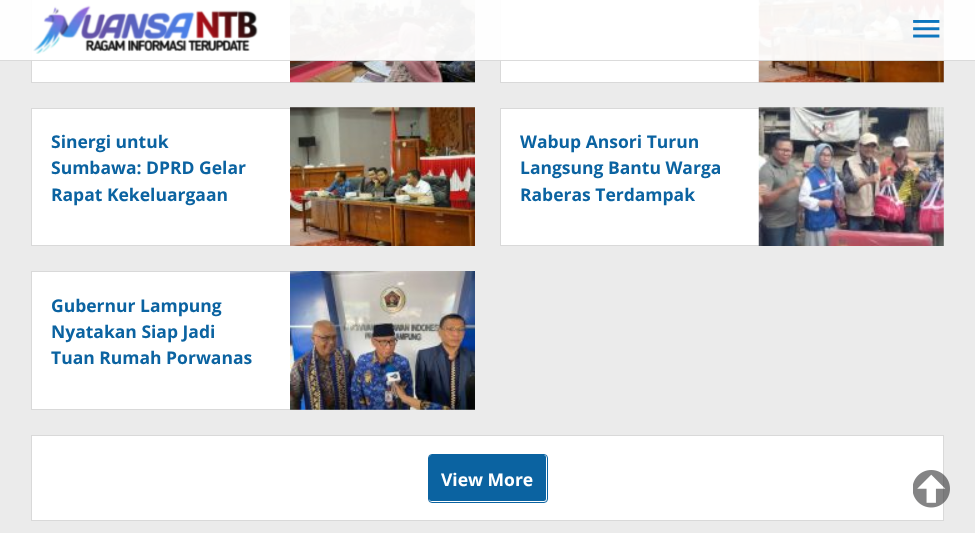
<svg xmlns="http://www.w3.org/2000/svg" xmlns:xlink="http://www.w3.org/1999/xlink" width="975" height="533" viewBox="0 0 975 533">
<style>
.cls-1{font:bold 17.5px Open Sans;fill:#0b63a1}
.cls-2{font:bold 17.5px Open Sans;fill:#ffffff}
</style>
<rect width="100%" height="100%" fill="#ebebeb"/>
<rect fill="#ffffff" x="32" y="0" width="258" height="82"/>
<rect fill="none" stroke="#d9d9d9" x="31.5" y="-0.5" width="443" height="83"/>
<image xlink:href="image2.png" x="290" y="0" width="185" height="83"/>
<rect fill="#ffffff" x="501" y="0" width="258" height="82"/>
<rect fill="none" stroke="#d9d9d9" x="500.5" y="-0.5" width="443" height="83"/>
<image xlink:href="image3.png" x="758" y="0" width="186" height="83"/>
<rect fill="#ffffff" fill-opacity="0.95" x="0" y="0" width="975" height="61"/>
<rect fill="#000000" fill-opacity="0.14" x="0" y="60" width="975" height="1"/>
<image xlink:href="image0.png" x="33" y="5" width="225" height="49"/>
<image xlink:href="image1.png" x="913" y="20" width="27" height="18"/>
<rect fill="#ffffff" x="32" y="109" width="258" height="136"/>
<rect fill="none" stroke="#d9d9d9" x="31.5" y="108.5" width="443" height="137"/>
<image xlink:href="image4.png" x="290" y="107" width="185" height="139"/>
<rect fill="#ffffff" x="501" y="109" width="258" height="136"/>
<rect fill="none" stroke="#d9d9d9" x="500.5" y="108.5" width="443" height="137"/>
<image xlink:href="image5.png" x="758" y="107" width="186" height="139"/>
<rect fill="#ffffff" x="32" y="272" width="258" height="137"/>
<rect fill="none" stroke="#d9d9d9" x="31.5" y="271.5" width="443" height="138"/>
<image xlink:href="image6.png" x="290" y="271" width="185" height="139"/>
<rect fill="#ffffff" stroke="#d9d9d9" x="31.5" y="435.5" width="912" height="85"/>
<rect fill="#0b63a1" x="429" y="455" width="117" height="46" rx="2.5"/>
<rect fill="none" stroke="#0b63a1" x="428.5" y="454.5" width="119" height="48" rx="3.5"/>
<image xlink:href="image7.png" x="913" y="470" width="37" height="38"/>
<text class="cls-1"><tspan x="51" y="148">Sinergi untuk</tspan><tspan x="51" y="174">Sumbawa: DPRD Gelar</tspan><tspan x="51" y="201">Rapat Kekeluargaan</tspan></text>
<text class="cls-1"><tspan x="520" y="148">Wabup Ansori Turun</tspan><tspan x="520" y="174">Langsung Bantu Warga</tspan><tspan x="520" y="201">Raberas Terdampak</tspan></text>
<text class="cls-1"><tspan x="51" y="312">Gubernur Lampung</tspan><tspan x="51" y="338">Nyatakan Siap Jadi</tspan><tspan x="51" y="364">Tuan Rumah Porwanas</tspan></text>
<text class="cls-2" x="441" y="486">View More</text>
</svg>
